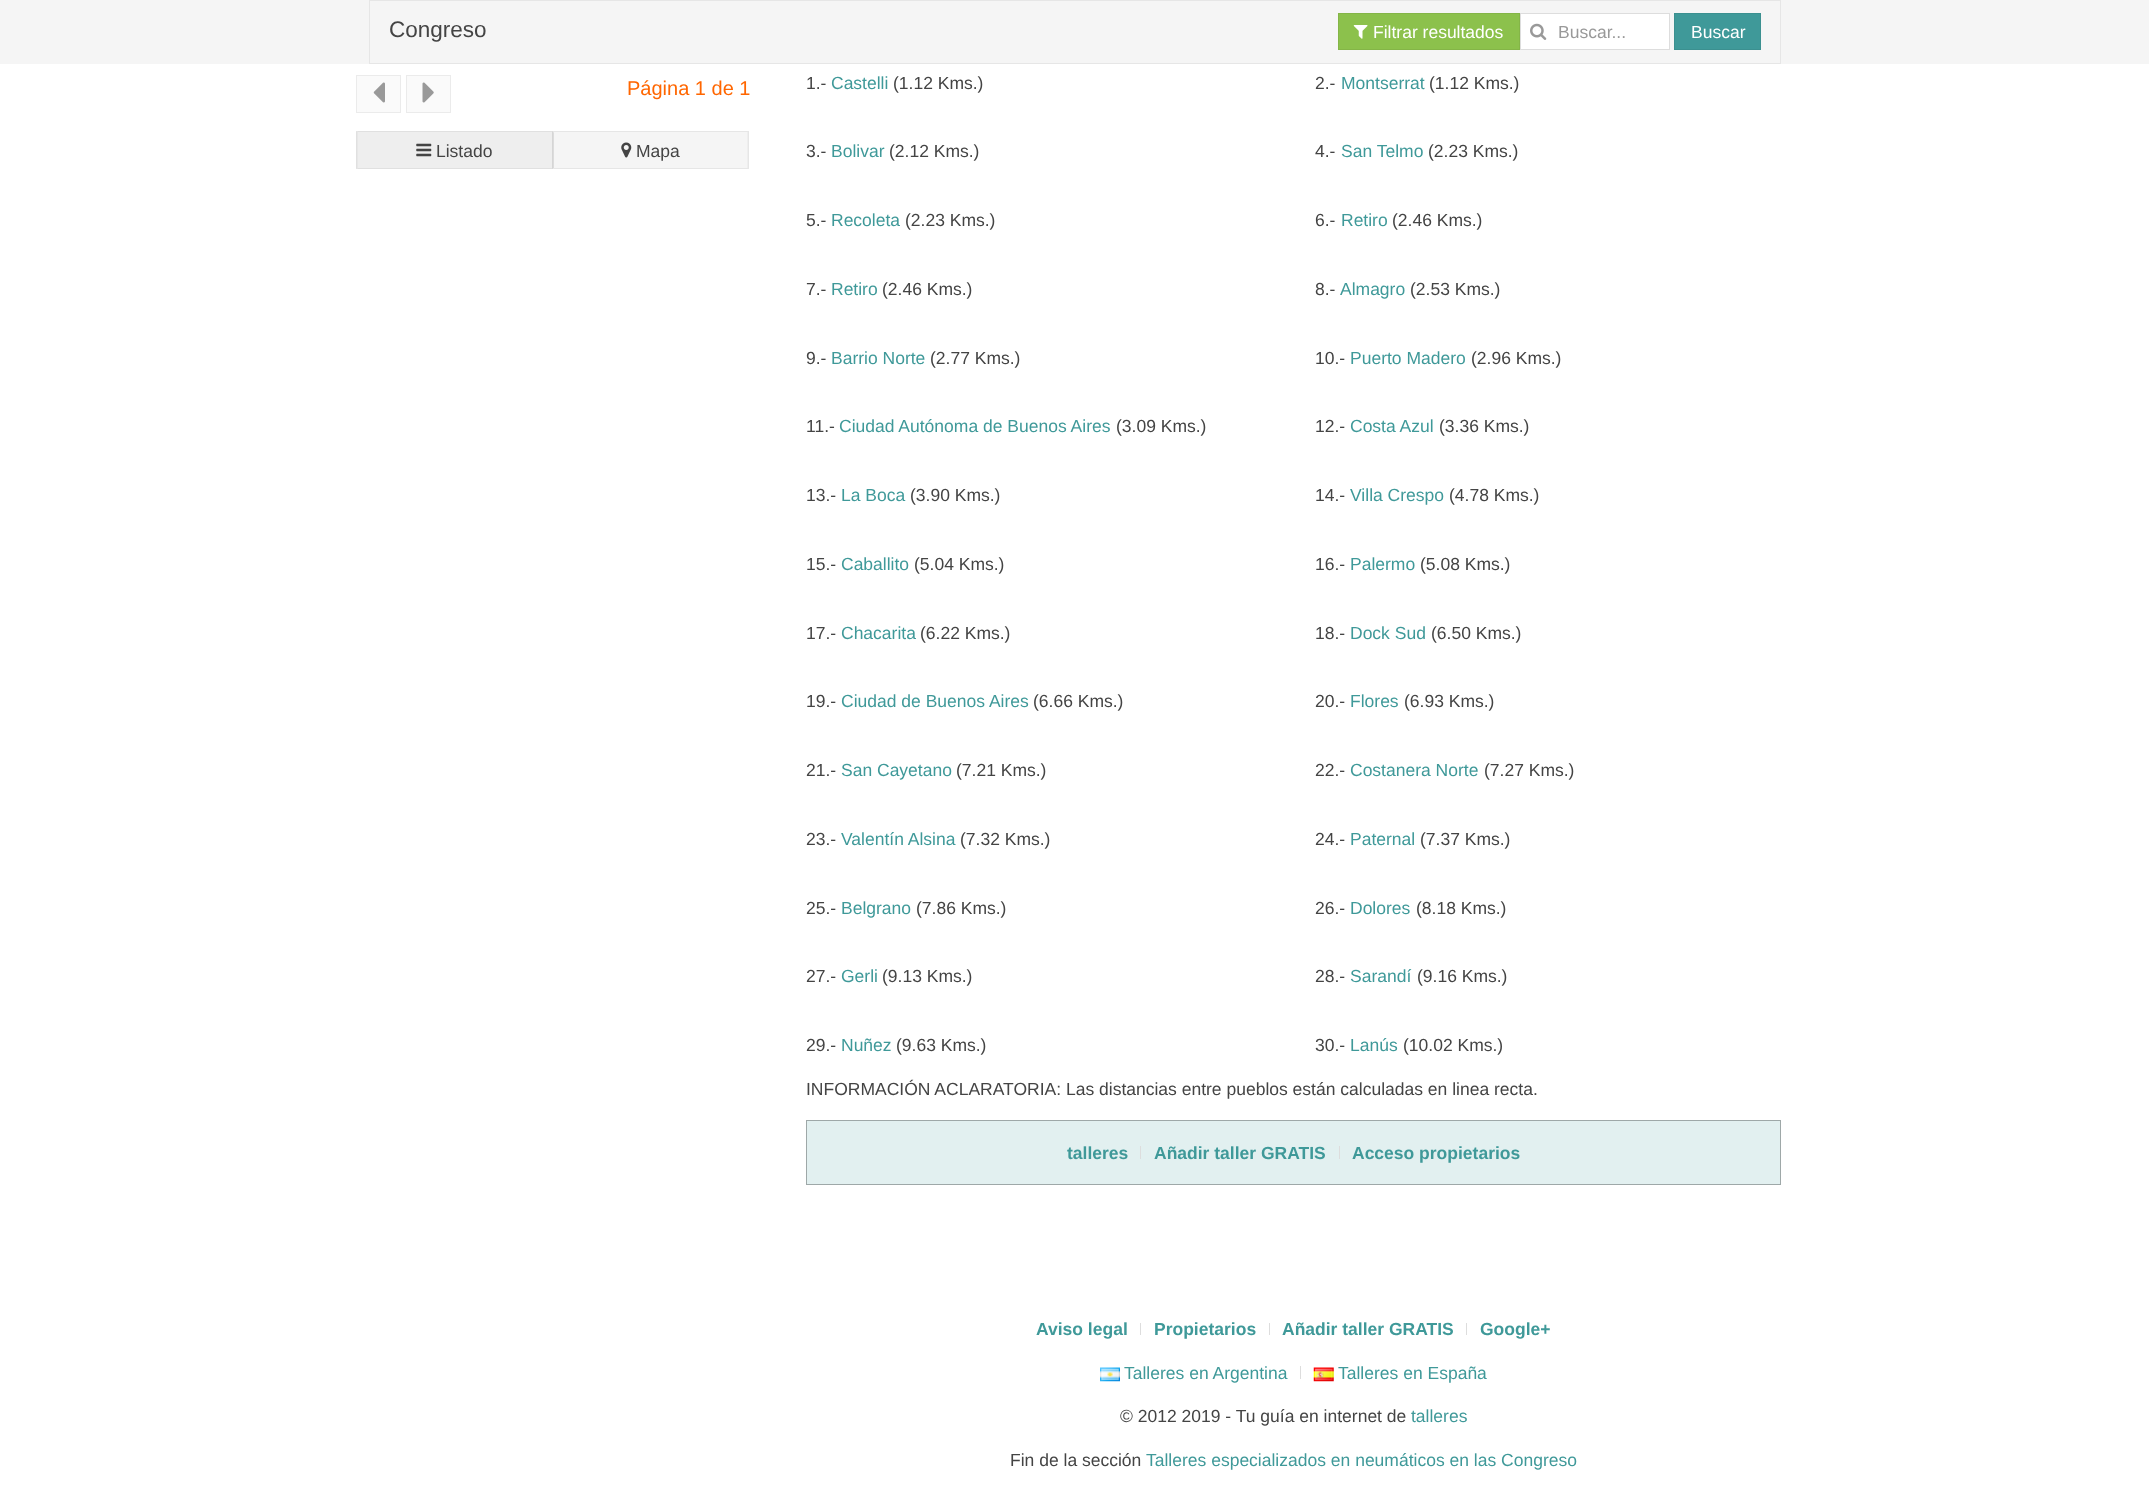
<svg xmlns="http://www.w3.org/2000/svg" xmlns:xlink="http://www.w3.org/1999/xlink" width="2149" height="1491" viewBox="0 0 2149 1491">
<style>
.cls-1{font:22.5px Liberation Sans;fill:#444444}
.cls-2{font:17.5px Liberation Sans;fill:#ffffff}
.cls-3{font:17.5px Liberation Sans;fill:#999999}
.cls-4{font:20px Liberation Sans;fill:#ff6600}
.cls-5{font:17.5px Liberation Sans;fill:#444444}
.cls-6{font:17.5px Liberation Sans;fill:#3f9999}
.cls-7{font:bold 17.5px Liberation Sans;fill:#3f9999}
</style>
<rect width="100%" height="100%" fill="#ffffff"/>
<rect fill="#f5f5f5" x="0" y="0" width="2149" height="64"/>
<rect fill="none" stroke="#e6e6e6" x="369.5" y="0.5" width="1411" height="63"/>
<rect fill="#8cc14c" stroke="#84b547" x="1338.5" y="13.5" width="181" height="36"/>
<image xlink:href="image0.png" x="1353" y="25" width="15" height="14"/>
<rect fill="#ffffff" stroke="#dddddd" x="1520.5" y="13.5" width="149" height="36"/>
<image xlink:href="image1.png" x="1530" y="23" width="17" height="17"/>
<rect fill="#3f9999" stroke="#3b9090" x="1674.5" y="13.5" width="86" height="36"/>
<rect fill="#fafafa" stroke="#ebebeb" x="356.5" y="75.5" width="44" height="37"/>
<image xlink:href="image2.png" x="373" y="82" width="12" height="21"/>
<rect fill="#fafafa" stroke="#ebebeb" x="406.5" y="75.5" width="44" height="37"/>
<image xlink:href="image3.png" x="422" y="82" width="12" height="21"/>
<rect fill="#eeeeee" x="356" y="131" width="197" height="38"/>
<path fill="#e0e0e0" d="M356 131H554L552 132H358Z"/>
<path fill="#000000" fill-opacity="0.1" d="M554 131V169L552.5 167.5V132.5Z"/>
<path fill="#e0e0e0" d="M554 169H356L358 168H552Z"/>
<path fill="#000000" fill-opacity="0.06" d="M356 169V131L357.5 132.5V167.5Z"/>
<image xlink:href="image4.png" x="416" y="143" width="16" height="14"/>
<rect fill="#f5f5f5" x="553" y="131" width="196" height="38"/>
<path fill="#e6e6e6" d="M552 131H749L748 132H554Z"/>
<path fill="#000000" fill-opacity="0.06" d="M749 131V169L747.5 167.5V132.5Z"/>
<path fill="#000000" fill-opacity="0.06" d="M749 169H552L554 168H748Z"/>
<path fill="#000000" fill-opacity="0.1" d="M552.5 169V131L554 132.5V167.5Z"/>
<image xlink:href="image5.png" x="621" y="142" width="11" height="16"/>
<rect fill="#e2f0f0" stroke="#9ea8a8" x="806.5" y="1120.5" width="974" height="64"/>
<rect fill="#dddddd" x="1140" y="1146" width="1" height="13"/>
<rect fill="#dddddd" x="1339" y="1146" width="1" height="13"/>
<rect fill="#dddddd" x="1140" y="1323" width="1" height="12"/>
<rect fill="#dddddd" x="1269" y="1323" width="1" height="12"/>
<rect fill="#dddddd" x="1466" y="1323" width="1" height="12"/>
<image xlink:href="image6.png" x="1100" y="1367" width="20" height="15"/>
<rect fill="#dddddd" x="1300" y="1366" width="1" height="13"/>
<image xlink:href="image7.png" x="1313" y="1367" width="21" height="15"/>
<text class="cls-1" x="389" y="37">Congreso</text>
<text class="cls-2" x="1373" y="38">Filtrar resultados</text>
<text class="cls-3" x="1558" y="38">Buscar...</text>
<text class="cls-2" x="1691" y="38">Buscar</text>
<text class="cls-4" x="627" y="95">Página 1 de 1</text>
<text class="cls-5" x="436" y="157">Listado</text>
<text class="cls-5" x="636" y="157">Mapa</text>
<text class="cls-5" x="806" y="89">1.-</text>
<text class="cls-6" x="831" y="89">Castelli</text>
<text class="cls-5" x="893" y="89">(1.12 Kms.)</text>
<text class="cls-5" x="1315" y="89">2.-</text>
<text class="cls-6" x="1341" y="89">Montserrat</text>
<text class="cls-5" x="1429" y="89">(1.12 Kms.)</text>
<text class="cls-5" x="806" y="157">3.-</text>
<text class="cls-6" x="831" y="157">Bolivar</text>
<text class="cls-5" x="889" y="157">(2.12 Kms.)</text>
<text class="cls-5" x="1315" y="157">4.-</text>
<text class="cls-6" x="1341" y="157">San Telmo</text>
<text class="cls-5" x="1428" y="157">(2.23 Kms.)</text>
<text class="cls-5" x="806" y="226">5.-</text>
<text class="cls-6" x="831" y="226">Recoleta</text>
<text class="cls-5" x="905" y="226">(2.23 Kms.)</text>
<text class="cls-5" x="1315" y="226">6.-</text>
<text class="cls-6" x="1341" y="226">Retiro</text>
<text class="cls-5" x="1392" y="226">(2.46 Kms.)</text>
<text class="cls-5" x="806" y="295">7.-</text>
<text class="cls-6" x="831" y="295">Retiro</text>
<text class="cls-5" x="882" y="295">(2.46 Kms.)</text>
<text class="cls-5" x="1315" y="295">8.-</text>
<text class="cls-6" x="1340" y="295">Almagro</text>
<text class="cls-5" x="1410" y="295">(2.53 Kms.)</text>
<text class="cls-5" x="806" y="364">9.-</text>
<text class="cls-6" x="831" y="364">Barrio Norte</text>
<text class="cls-5" x="930" y="364">(2.77 Kms.)</text>
<text class="cls-5" x="1315" y="364">10.-</text>
<text class="cls-6" x="1350" y="364">Puerto Madero</text>
<text class="cls-5" x="1471" y="364">(2.96 Kms.)</text>
<text class="cls-5" x="806" y="432">11.-</text>
<text class="cls-6" x="839" y="432">Ciudad Autónoma de Buenos Aires</text>
<text class="cls-5" x="1116" y="432">(3.09 Kms.)</text>
<text class="cls-5" x="1315" y="432">12.-</text>
<text class="cls-6" x="1350" y="432">Costa Azul</text>
<text class="cls-5" x="1439" y="432">(3.36 Kms.)</text>
<text class="cls-5" x="806" y="501">13.-</text>
<text class="cls-6" x="841" y="501">La Boca</text>
<text class="cls-5" x="910" y="501">(3.90 Kms.)</text>
<text class="cls-5" x="1315" y="501">14.-</text>
<text class="cls-6" x="1350" y="501">Villa Crespo</text>
<text class="cls-5" x="1449" y="501">(4.78 Kms.)</text>
<text class="cls-5" x="806" y="570">15.-</text>
<text class="cls-6" x="841" y="570">Caballito</text>
<text class="cls-5" x="914" y="570">(5.04 Kms.)</text>
<text class="cls-5" x="1315" y="570">16.-</text>
<text class="cls-6" x="1350" y="570">Palermo</text>
<text class="cls-5" x="1420" y="570">(5.08 Kms.)</text>
<text class="cls-5" x="806" y="639">17.-</text>
<text class="cls-6" x="841" y="639">Chacarita</text>
<text class="cls-5" x="920" y="639">(6.22 Kms.)</text>
<text class="cls-5" x="1315" y="639">18.-</text>
<text class="cls-6" x="1350" y="639">Dock Sud</text>
<text class="cls-5" x="1431" y="639">(6.50 Kms.)</text>
<text class="cls-5" x="806" y="707">19.-</text>
<text class="cls-6" x="841" y="707">Ciudad de Buenos Aires</text>
<text class="cls-5" x="1033" y="707">(6.66 Kms.)</text>
<text class="cls-5" x="1315" y="707">20.-</text>
<text class="cls-6" x="1350" y="707">Flores</text>
<text class="cls-5" x="1404" y="707">(6.93 Kms.)</text>
<text class="cls-5" x="806" y="776">21.-</text>
<text class="cls-6" x="841" y="776">San Cayetano</text>
<text class="cls-5" x="956" y="776">(7.21 Kms.)</text>
<text class="cls-5" x="1315" y="776">22.-</text>
<text class="cls-6" x="1350" y="776">Costanera Norte</text>
<text class="cls-5" x="1484" y="776">(7.27 Kms.)</text>
<text class="cls-5" x="806" y="845">23.-</text>
<text class="cls-6" x="841" y="845">Valentín Alsina</text>
<text class="cls-5" x="960" y="845">(7.32 Kms.)</text>
<text class="cls-5" x="1315" y="845">24.-</text>
<text class="cls-6" x="1350" y="845">Paternal</text>
<text class="cls-5" x="1420" y="845">(7.37 Kms.)</text>
<text class="cls-5" x="806" y="914">25.-</text>
<text class="cls-6" x="841" y="914">Belgrano</text>
<text class="cls-5" x="916" y="914">(7.86 Kms.)</text>
<text class="cls-5" x="1315" y="914">26.-</text>
<text class="cls-6" x="1350" y="914">Dolores</text>
<text class="cls-5" x="1416" y="914">(8.18 Kms.)</text>
<text class="cls-5" x="806" y="982">27.-</text>
<text class="cls-6" x="841" y="982">Gerli</text>
<text class="cls-5" x="882" y="982">(9.13 Kms.)</text>
<text class="cls-5" x="1315" y="982">28.-</text>
<text class="cls-6" x="1350" y="982">Sarandí</text>
<text class="cls-5" x="1417" y="982">(9.16 Kms.)</text>
<text class="cls-5" x="806" y="1051">29.-</text>
<text class="cls-6" x="841" y="1051">Nuñez</text>
<text class="cls-5" x="896" y="1051">(9.63 Kms.)</text>
<text class="cls-5" x="1315" y="1051">30.-</text>
<text class="cls-6" x="1350" y="1051">Lanús</text>
<text class="cls-5" x="1403" y="1051">(10.02 Kms.)</text>
<text class="cls-5" x="806" y="1095">INFORMACIÓN ACLARATORIA: Las distancias entre pueblos están calculadas en linea recta.</text>
<text class="cls-7" x="1067" y="1159">talleres</text>
<text class="cls-7" x="1154" y="1159">Añadir taller GRATIS</text>
<text class="cls-7" x="1352" y="1159">Acceso propietarios</text>
<text class="cls-7" x="1036" y="1335">Aviso legal</text>
<text class="cls-7" x="1154" y="1335">Propietarios</text>
<text class="cls-7" x="1282" y="1335">Añadir taller GRATIS</text>
<text class="cls-7" x="1480" y="1335">Google+</text>
<text class="cls-6" x="1124" y="1379">Talleres en Argentina</text>
<text class="cls-6" x="1338" y="1379">Talleres en España</text>
<text class="cls-5" x="1120" y="1422">© 2012 2019 - Tu guía en internet de</text>
<text class="cls-6" x="1411" y="1422">talleres</text>
<text class="cls-5" x="1010" y="1466">Fin de la sección</text>
<text class="cls-6" x="1146" y="1466">Talleres especializados en neumáticos en las Congreso</text>
</svg>
